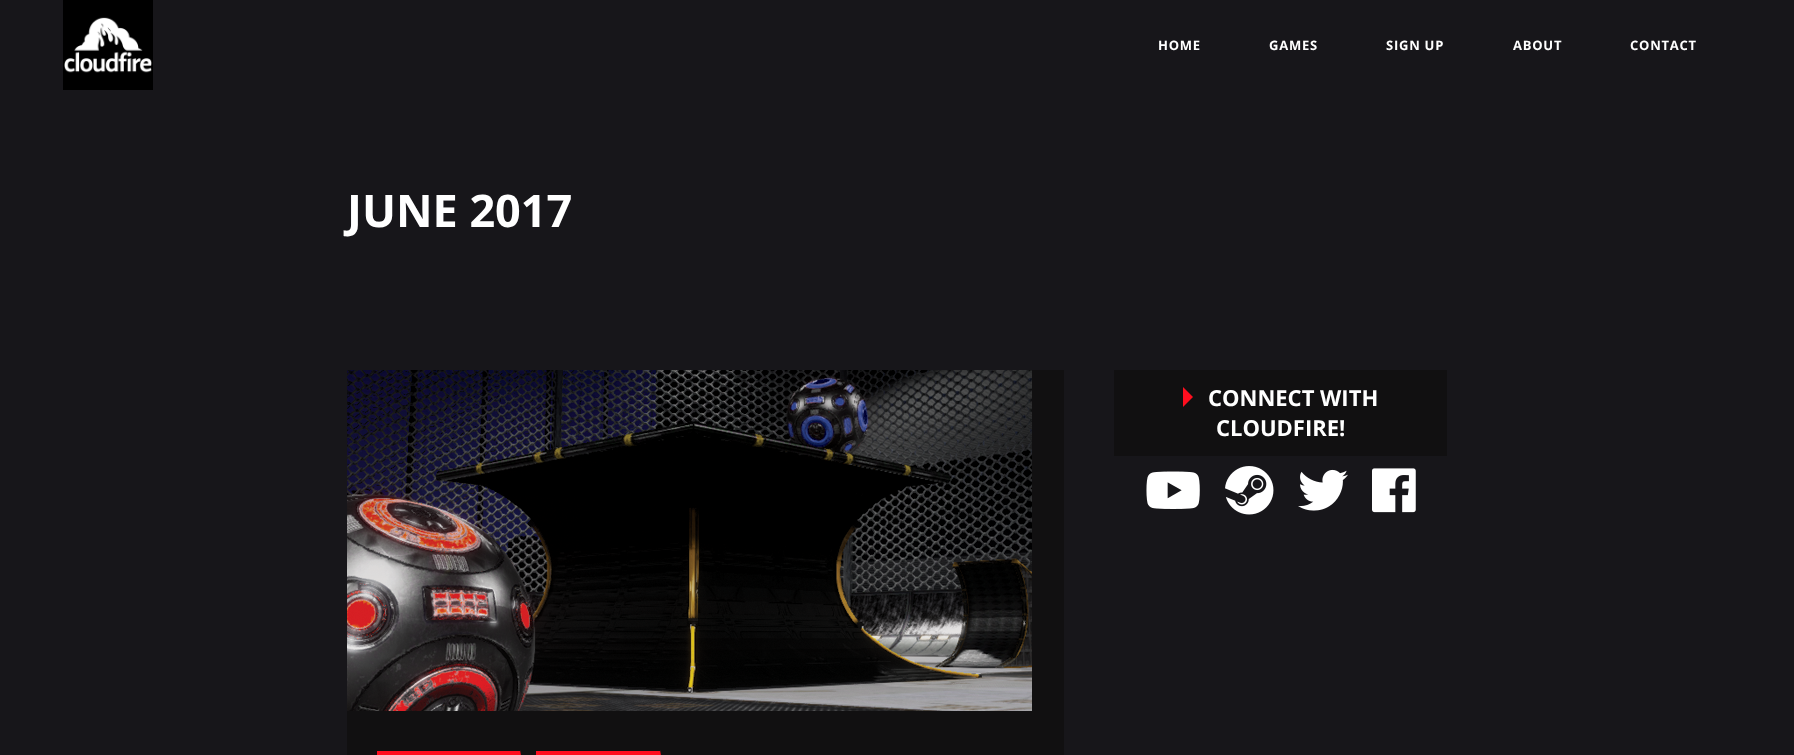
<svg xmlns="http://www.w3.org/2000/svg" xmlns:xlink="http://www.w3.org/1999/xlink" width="1794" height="755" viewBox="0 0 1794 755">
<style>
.cls-1{font:bold 13px Open Sans;letter-spacing:0.75px;fill:#ffffff}
.cls-2{font:bold 45px Open Sans;fill:#ffffff}
.cls-3{font:bold 22px Open Sans;fill:#ffffff}
</style>
<rect width="100%" height="100%" fill="#17161a"/>
<image xlink:href="image0.png" x="63" y="0" width="90" height="90"/>
<rect fill="#111011" x="347" y="370" width="717" height="385"/>
<image xlink:href="image1.png" x="347" y="370" width="685" height="341"/>
<rect fill="#ff0e1f" x="377" y="751" width="143" height="4"/>
<path fill="#ff0e1f" d="M525 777H520V750Z"/>
<rect fill="#ff0e1f" x="536" y="751" width="124" height="4"/>
<path fill="#ff0e1f" d="M665 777H660V750Z"/>
<rect fill="#111011" x="1114" y="370" width="333" height="86"/>
<path fill="#ff0e1f" d="M1183 407V387L1193 397Z"/>
<image xlink:href="image2.png" x="1146" y="471" width="54" height="38"/>
<image xlink:href="image3.png" x="1225" y="466" width="49" height="49"/>
<image xlink:href="image4.png" x="1298" y="469" width="50" height="42"/>
<image xlink:href="image5.png" x="1372" y="468" width="44" height="45"/>
<text class="cls-1" x="1158" y="50">HOME</text>
<text class="cls-1" x="1269" y="50">GAMES</text>
<text class="cls-1" x="1386" y="50">SIGN UP</text>
<text class="cls-1" x="1513" y="50">ABOUT</text>
<text class="cls-1" x="1630" y="50">CONTACT</text>
<text class="cls-2" x="347" y="227">JUNE 2017</text>
<text class="cls-3" x="1208" y="406">CONNECT WITH</text>
<text class="cls-3" x="1216" y="436">CLOUDFIRE!</text>
</svg>
